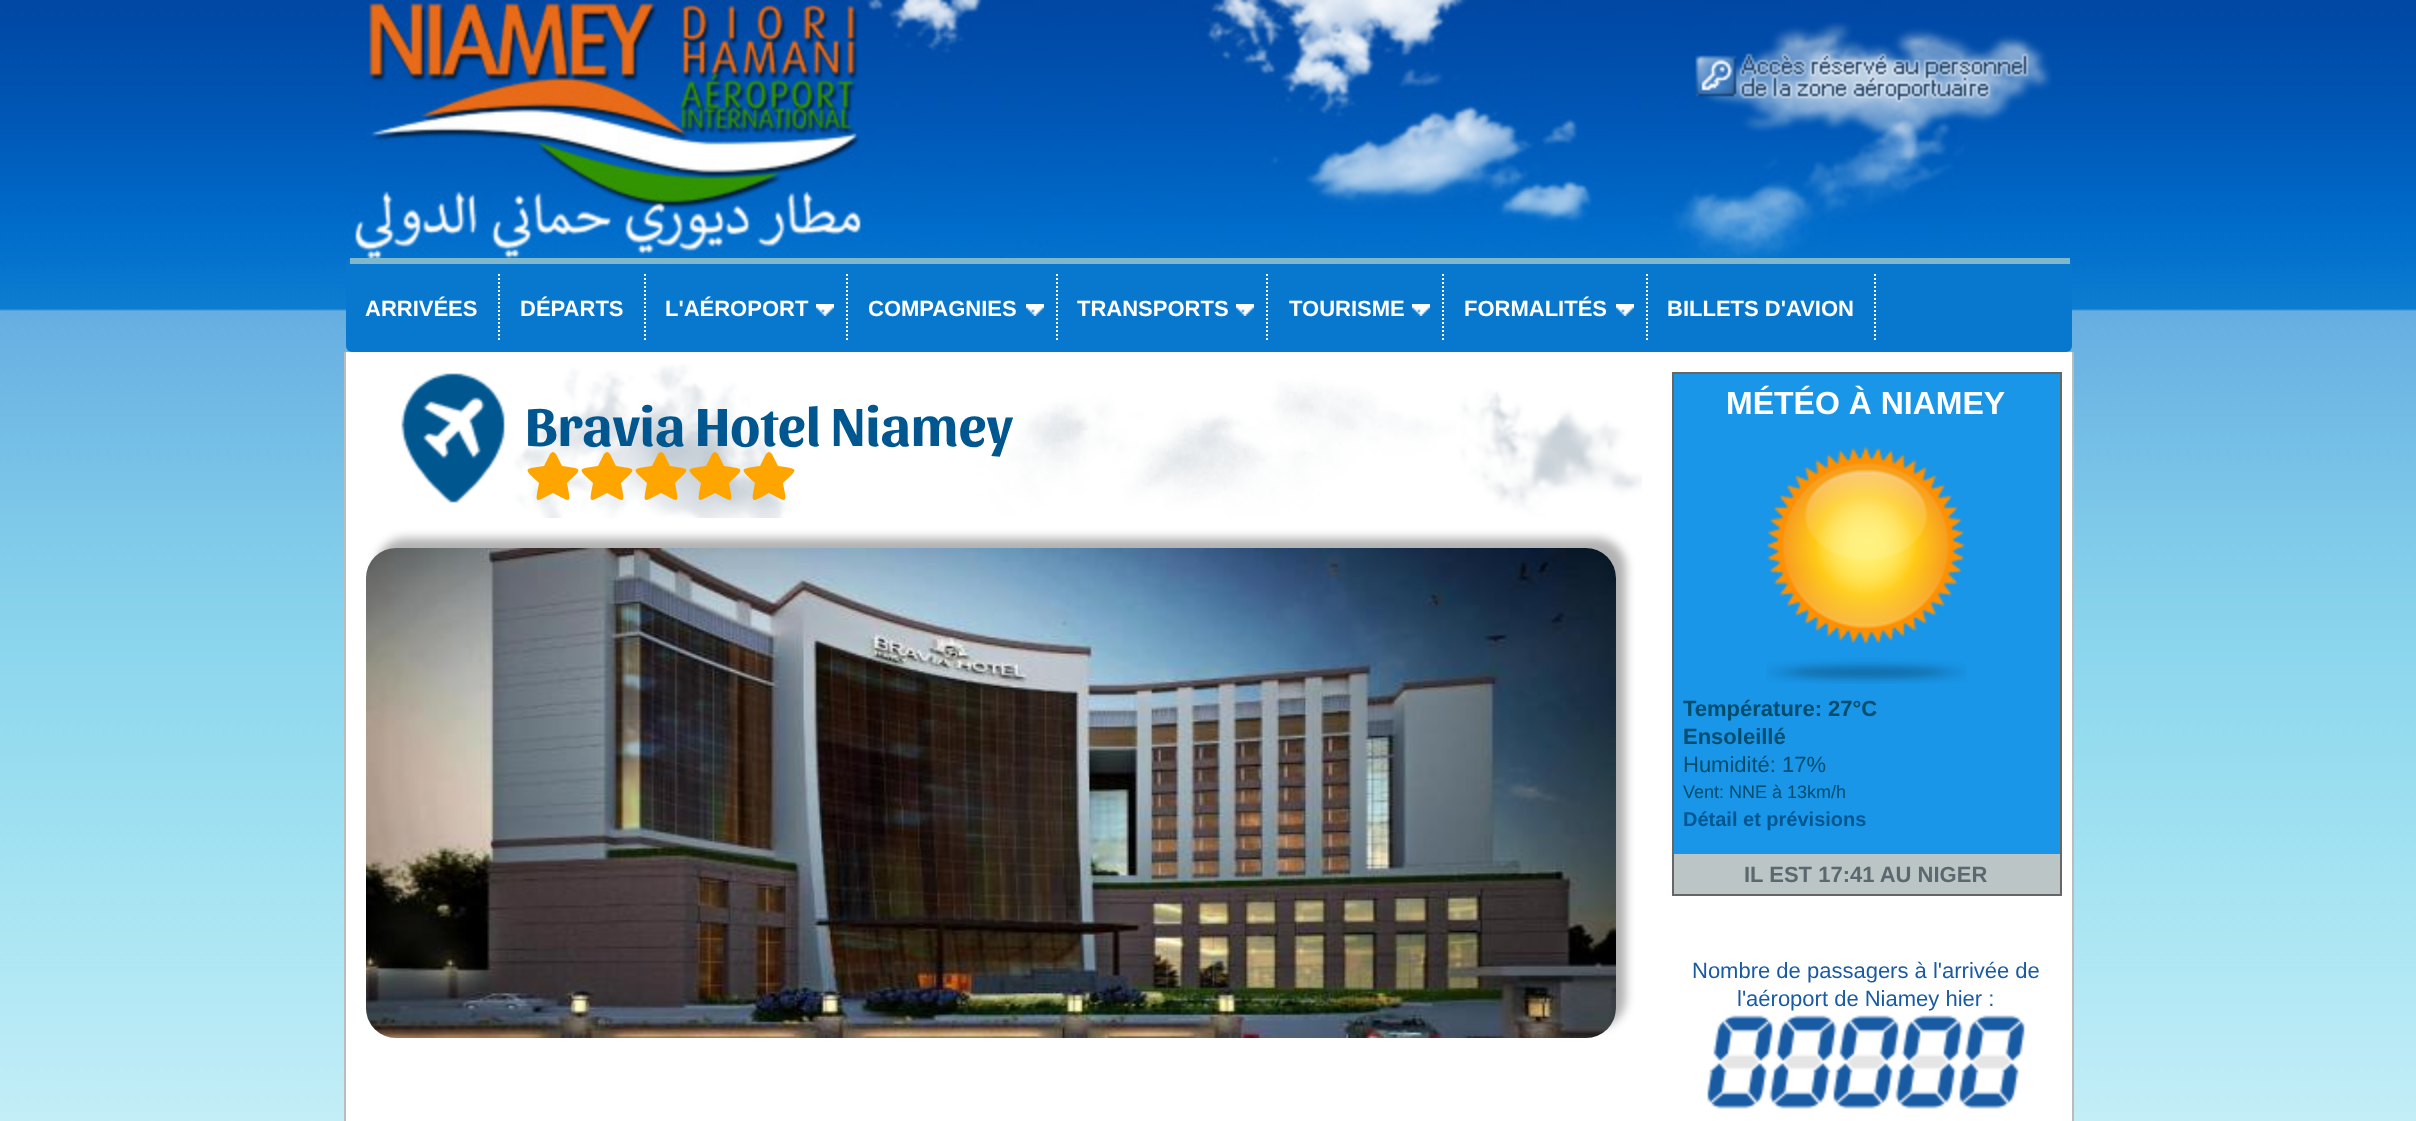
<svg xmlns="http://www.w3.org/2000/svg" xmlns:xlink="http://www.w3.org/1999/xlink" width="2416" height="1121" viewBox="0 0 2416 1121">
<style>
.cls-1{font:bold 22px Liberation Sans;fill:#ffffff}
.cls-2{font:bold 56px Sansita;fill:#005790}
.cls-3{font:bold 32px Liberation Sans;fill:#ffffff}
.cls-4{font:bold 22px Liberation Sans;fill:#004c6c}
.cls-5{font:22px Liberation Sans;fill:#004c6c}
.cls-6{font:18px Liberation Sans;fill:#004c6c}
.cls-7{font:bold 20px Liberation Sans;fill:#005790}
.cls-8{font:bold 22px Liberation Sans;fill:#5b686f}
.cls-9{font:22px Liberation Sans;fill:#195ba2}
</style>
<rect width="100%" height="100%" fill="#ffffff"/>
<image xlink:href="image0.png" x="0" y="0" width="2416" height="1121"/>
<image xlink:href="image1.png" x="346" y="0" width="1618" height="258"/>
<image xlink:href="image2.png" x="1695" y="22" width="357" height="117"/>
<rect fill="#0878ce" x="346" y="258" width="1726" height="94" rx="6"/>
<rect fill="#7fb8cc" x="350" y="258" width="1720" height="6"/>
<path fill="none" stroke="#ffffff" stroke-width="2" stroke-dasharray="2 2" d="M499 274V342"/>
<path fill="none" stroke="#ffffff" stroke-width="2" stroke-dasharray="2 2" d="M645 274V342"/>
<path fill="none" stroke="#ffffff" stroke-width="2" stroke-dasharray="2 2" d="M847 274V342"/>
<image xlink:href="image3.png" x="816" y="304" width="18" height="12"/>
<path fill="none" stroke="#ffffff" stroke-width="2" stroke-dasharray="2 2" d="M1057 274V342"/>
<image xlink:href="image3.png" x="1026" y="304" width="18" height="12"/>
<path fill="none" stroke="#ffffff" stroke-width="2" stroke-dasharray="2 2" d="M1267 274V342"/>
<image xlink:href="image3.png" x="1236" y="304" width="18" height="12"/>
<path fill="none" stroke="#ffffff" stroke-width="2" stroke-dasharray="2 2" d="M1443 274V342"/>
<image xlink:href="image3.png" x="1412" y="304" width="18" height="12"/>
<path fill="none" stroke="#ffffff" stroke-width="2" stroke-dasharray="2 2" d="M1647 274V342"/>
<image xlink:href="image3.png" x="1616" y="304" width="18" height="12"/>
<path fill="none" stroke="#ffffff" stroke-width="2" stroke-dasharray="2 2" d="M1875 274V342"/>
<rect fill="#ffffff" x="346" y="352" width="1726" height="769"/>
<rect fill="#bbbbbb" x="2072" y="352" width="2" height="769"/>
<rect fill="#bbbbbb" x="344" y="352" width="2" height="769"/>
<image xlink:href="image4.png" x="401" y="364" width="1241" height="154"/>
<rect fill="#000000" fill-opacity="0.3" filter="blur(5px)" x="376" y="538" width="1250" height="490" rx="30"/>
<rect fill="#eeeedd" x="366" y="548" width="1250" height="490" rx="30"/>
<image xlink:href="image5.png" x="366" y="548" width="1250" height="490"/>
<rect fill="#1996e8" x="1674" y="374" width="386" height="480"/>
<rect fill="#666666" x="1672" y="372" width="390" height="2"/>
<rect fill="#666666" x="2060" y="372" width="2" height="524"/>
<rect fill="#666666" x="1672" y="372" width="2" height="482"/>
<image xlink:href="image6.png" x="1766" y="445" width="201" height="239"/>
<rect fill="#bbc5c6" x="1674" y="854" width="386" height="40"/>
<rect fill="#666666" x="1672" y="894" width="390" height="2"/>
<rect fill="#666666" x="1672" y="854" width="2" height="42"/>
<image xlink:href="image7.png" x="1707" y="1015" width="318" height="94"/>
<text class="cls-1" x="365" y="316">ARRIVÉES</text>
<text class="cls-1" x="520" y="316">DÉPARTS</text>
<text class="cls-1" x="665" y="316">L'AÉROPORT</text>
<text class="cls-1" x="868" y="316">COMPAGNIES</text>
<text class="cls-1" x="1077" y="316">TRANSPORTS</text>
<text class="cls-1" x="1289" y="316">TOURISME</text>
<text class="cls-1" x="1464" y="316">FORMALITÉS</text>
<text class="cls-1" x="1667" y="316">BILLETS D'AVION</text>
<text class="cls-2" x="525" y="446">Bravia Hotel Niamey</text>
<path fill="#ffa500" d="M550 454C551 453 552 452 553 452C554 452 555 453 556 454L562 466C583 469 583 468 567 483C571 504 572 503 553 493C534 503 535 504 539 483C523 468 523 469 544 466Z"/>
<path fill="#ffa500" d="M604 454C605 453 606 452 607 452C608 452 609 453 610 454L616 466C637 469 637 468 621 483C625 504 626 503 607 493C588 503 589 504 593 483C577 468 577 469 598 466Z"/>
<path fill="#ffa500" d="M658 454C659 453 660 452 661 452C662 452 663 453 664 454L670 466C691 469 691 468 675 483C679 504 680 503 661 493C642 503 643 504 647 483C631 468 631 469 652 466Z"/>
<path fill="#ffa500" d="M712 454C713 453 714 452 715 452C716 452 717 453 718 454L724 466C745 469 745 468 729 483C733 504 734 503 715 493C696 503 697 504 701 483C685 468 685 469 706 466Z"/>
<path fill="#ffa500" d="M766 454C767 453 768 452 769 452C770 452 771 453 772 454L778 466C799 469 799 468 783 483C787 504 788 503 769 493C750 503 751 504 755 483C739 468 739 469 760 466Z"/>
<text class="cls-3" x="1726" y="414">MÉTÉO À NIAMEY</text>
<text class="cls-4"><tspan x="1683" y="716">Température: 27°C</tspan><tspan x="1683" y="744">Ensoleillé</tspan></text>
<text class="cls-5" x="1683" y="772">Humidité: 17%</text>
<text class="cls-6" x="1683" y="798">Vent: NNE à 13km/h</text>
<text class="cls-7" x="1683" y="826">Détail et prévisions</text>
<text class="cls-8" x="1744" y="882">IL EST 17:41 AU NIGER</text>
<text class="cls-9" x="1692" y="978">Nombre de passagers à l'arrivée de</text>
<text class="cls-9" x="1737" y="1006">l'aéroport de Niamey hier :</text>
</svg>
